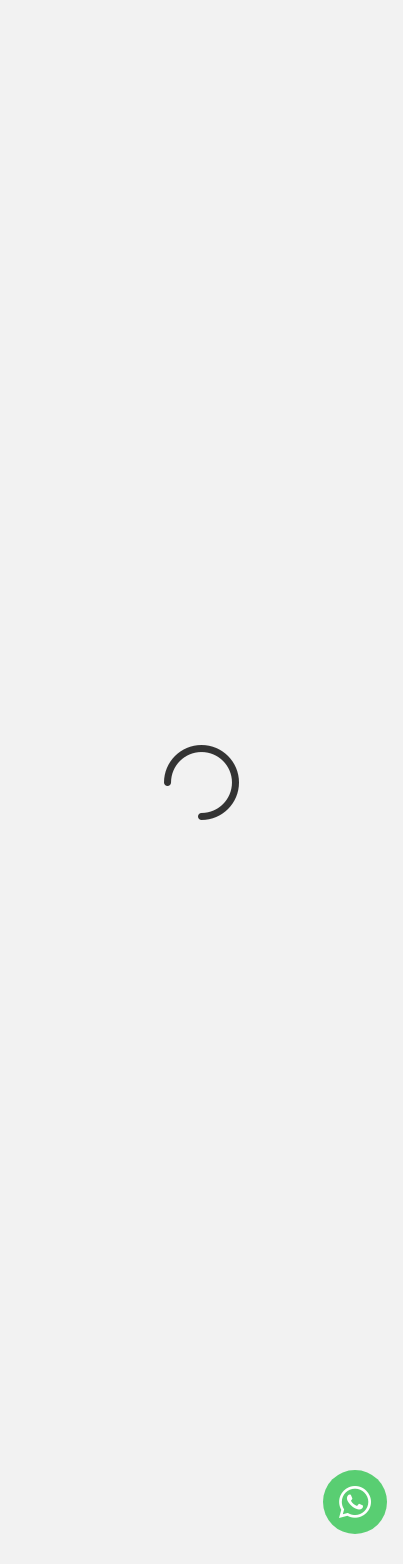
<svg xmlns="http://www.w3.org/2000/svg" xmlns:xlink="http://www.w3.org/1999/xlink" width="403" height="1564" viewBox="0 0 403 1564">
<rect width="100%" height="100%" fill="#f2f2f2"/>
<image xlink:href="image0.png" x="164" y="745" width="75" height="75"/>
<circle fill="#59ce72" cx="355" cy="1502" r="32"/>
<image xlink:href="image1.png" x="339" y="1486" width="32" height="32"/>
</svg>
